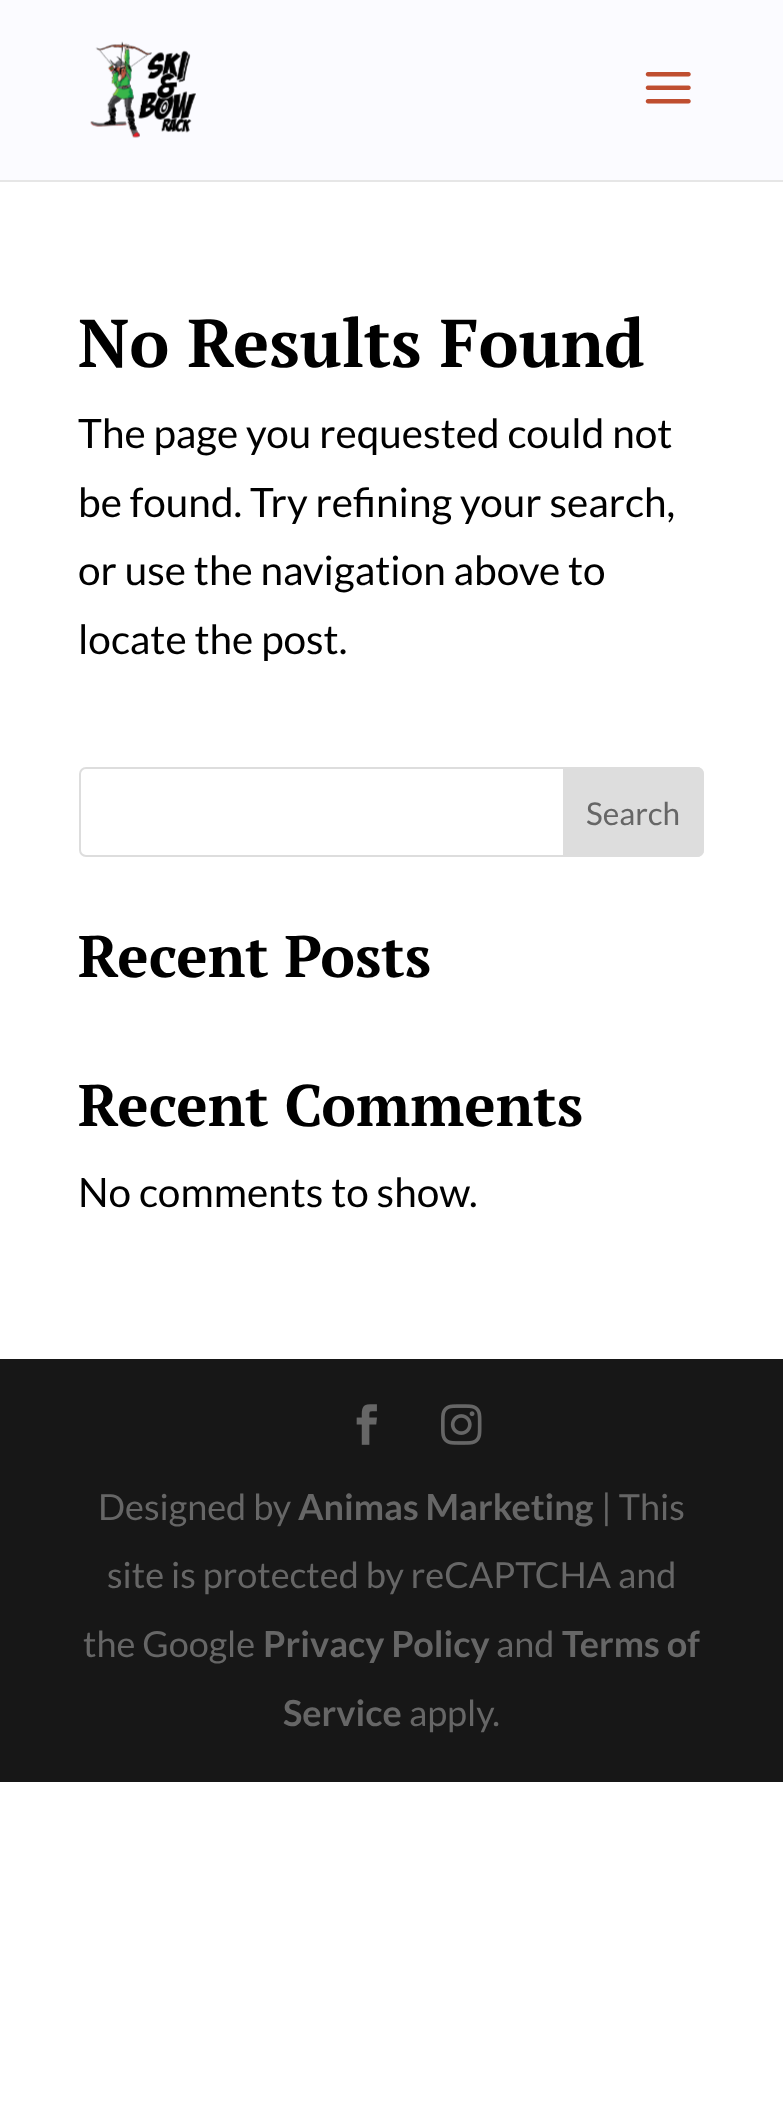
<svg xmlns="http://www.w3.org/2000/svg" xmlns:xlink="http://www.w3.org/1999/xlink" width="783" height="2122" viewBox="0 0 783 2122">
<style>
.cls-1{font:bold 67.5px PT Serif;fill:#000000}
.cls-2{font:40.5px Lato;fill:#000000}
.cls-3{font:31.5px Lato;fill:#666666}
.cls-4{font:bold 58.5px PT Serif;fill:#000000}
.cls-5{font:36px Lato;fill:#666666}
.cls-6{font:bold 36px Lato;fill:#666666}
</style>
<rect width="100%" height="100%" fill="#ffffff"/>
<rect fill="#e6e6e6" x="0" y="180" width="783" height="2"/>
<rect fill="#fbfbff" x="0" y="0" width="783" height="180"/>
<image xlink:href="image0.png" x="90" y="41" width="106" height="97"/>
<image xlink:href="image1.png" x="645" y="72" width="46" height="32"/>
<rect fill="none" stroke="#dddddd" stroke-width="2" x="80" y="768" width="623" height="88" rx="6"/>
<path fill="#dddddd" stroke="#dddddd" stroke-width="2" d="M564 768H697C700.5 768 703 770.5 703 774V850C703 853.5 700.5 856 697 856H564Z"/>
<rect fill="#171717" x="0" y="1359" width="783" height="423"/>
<image xlink:href="image2.png" x="356" y="1404" width="21" height="41"/>
<image xlink:href="image3.png" x="441" y="1404" width="41" height="41"/>
<text class="cls-1" x="78" y="367">No Results Found</text>
<text class="cls-2"><tspan x="78" y="448">The page you requested could not</tspan><tspan x="78" y="517">be found. Try refining your search,</tspan><tspan x="78" y="585">or use the navigation above to</tspan><tspan x="78" y="654">locate the post.</tspan></text>
<text class="cls-3" x="586" y="825">Search</text>
<text class="cls-4" x="78" y="977">Recent Posts</text>
<text class="cls-4" x="78" y="1126">Recent Comments</text>
<text class="cls-2" x="78" y="1207">No comments to show.</text>
<text class="cls-5" x="98" y="1520">Designed by</text>
<text class="cls-6" x="298" y="1520">Animas Marketing</text>
<text class="cls-5" x="601" y="1520">| This</text>
<text class="cls-5" x="107" y="1588">site is protected by reCAPTCHA and</text>
<text class="cls-5" x="83" y="1657">the Google</text>
<text class="cls-6" x="263" y="1657">Privacy Policy</text>
<text class="cls-5" x="496" y="1657">and</text>
<text class="cls-6" x="562" y="1657">Terms of</text>
<text class="cls-6" x="283" y="1726">Service</text>
<text class="cls-5" x="409" y="1726">apply.</text>
</svg>
